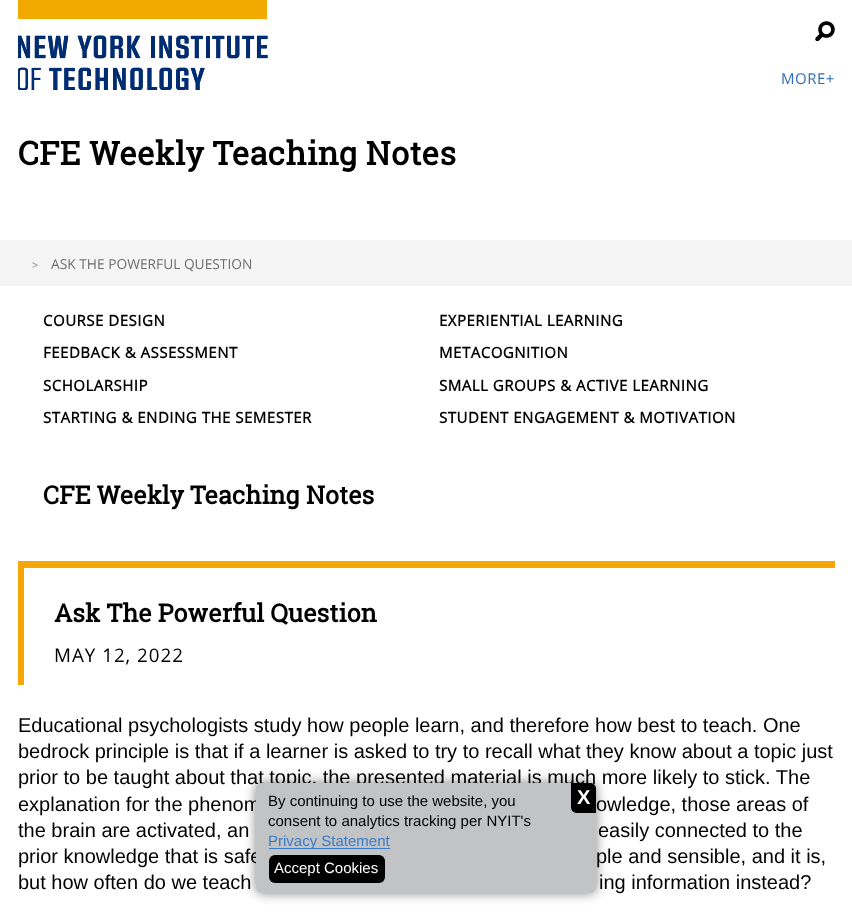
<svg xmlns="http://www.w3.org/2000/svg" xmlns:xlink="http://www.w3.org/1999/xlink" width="852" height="917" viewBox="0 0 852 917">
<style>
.cls-1{font:15px Open Sans;letter-spacing:0.5px;fill:#2f6bb4}
.cls-2{font:bold 32.5px Roboto Slab;letter-spacing:0.3px;fill:#000000}
.cls-3{font:11px Open Sans;fill:#848484}
.cls-4{font:13.75px Open Sans;fill:#6e6e6e}
.cls-5{font:bold 15px Open Sans;letter-spacing:0.5px;fill:#000000}
.cls-6{font:bold 25px Roboto Slab;fill:#000000}
.cls-7{font:18.75px Open Sans;letter-spacing:1px;fill:#000000}
.cls-8{font:20px Liberation Sans;fill:#000000}
.cls-9{font:15px Liberation Sans;fill:#000000}
.cls-10{font:15px Liberation Sans;fill:#3b7cca}
.cls-11{font:15px Liberation Sans;fill:#ffffff}
.cls-12{font:bold 20px Liberation Sans;fill:#ffffff}
</style>
<rect width="100%" height="100%" fill="#ffffff"/>
<image xlink:href="image0.png" x="18" y="0" width="250" height="90"/>
<image xlink:href="image1.png" x="815" y="21" width="20" height="20"/>
<rect fill="#f5f5f5" x="0" y="240" width="852" height="46"/>
<rect fill="#f6a704" x="18" y="561" width="817" height="7"/>
<rect fill="#f6a704" x="18" y="561" width="6" height="124"/>
<rect fill="#808080" filter="blur(6px)" x="256" y="783" width="340" height="110" rx="6"/>
<text class="cls-1" x="781" y="84">MORE+</text>
<text class="cls-2" x="18" y="165">CFE Weekly Teaching Notes</text>
<text class="cls-3" x="32" y="269">&gt;</text>
<text class="cls-4" x="51" y="269">ASK THE POWERFUL QUESTION</text>
<text class="cls-5" x="43" y="326">COURSE DESIGN</text>
<text class="cls-5" x="439" y="326">EXPERIENTIAL LEARNING</text>
<text class="cls-5" x="43" y="358">FEEDBACK &amp; ASSESSMENT</text>
<text class="cls-5" x="439" y="358">METACOGNITION</text>
<text class="cls-5" x="43" y="391">SCHOLARSHIP</text>
<text class="cls-5" x="439" y="391">SMALL GROUPS &amp; ACTIVE LEARNING</text>
<text class="cls-5" x="43" y="423">STARTING &amp; ENDING THE SEMESTER</text>
<text class="cls-5" x="439" y="423">STUDENT ENGAGEMENT &amp; MOTIVATION</text>
<text class="cls-6" x="43" y="504">CFE Weekly Teaching Notes</text>
<text class="cls-6" x="54" y="622">Ask The Powerful Question</text>
<text class="cls-7" x="54" y="662">MAY 12, 2022</text>
<text class="cls-8"><tspan x="18" y="732">Educational psychologists study how people learn, and therefore how best to teach. One</tspan><tspan x="18" y="758">bedrock principle is that if a learner is asked to try to recall what they know about a topic just</tspan><tspan x="18" y="784">prior to be taught about that topic, the presented material is much more likely to stick. The</tspan><tspan x="18" y="811">explanation for the phenom</tspan></text>
<text class="cls-8" x="596" y="811">owledge, those areas of</text>
<text class="cls-8" x="18" y="837">the brain are activated, an</text>
<text class="cls-8" x="598" y="837">easily connected to the</text>
<text class="cls-8" x="18" y="863">prior knowledge that is safe</text>
<text class="cls-8" x="596" y="863">ple and sensible, and it is,</text>
<text class="cls-8" x="18" y="889">but how often do we teach</text>
<text class="cls-8" x="599" y="889">ing information instead?</text>
<rect fill="#c2c3c4" x="256" y="783" width="340" height="110" rx="6"/>
<text class="cls-9"><tspan x="268" y="806">By continuing to use the website, you</tspan><tspan x="268" y="826">consent to analytics tracking per NYIT's</tspan></text>
<rect fill="#3b7cca" x="269" y="848" width="121" height="1"/>
<text class="cls-10" x="268" y="846">Privacy Statement</text>
<rect fill="#000000" x="269" y="855" width="116" height="28" rx="6"/>
<text class="cls-11" x="274" y="873">Accept Cookies</text>
<path fill="#000000" d="M571 783H590C593.5 783 596 785.5 596 789V813H577C573.5 813 571 810.5 571 807Z"/>
<text class="cls-12" x="577" y="804">X</text>
</svg>
